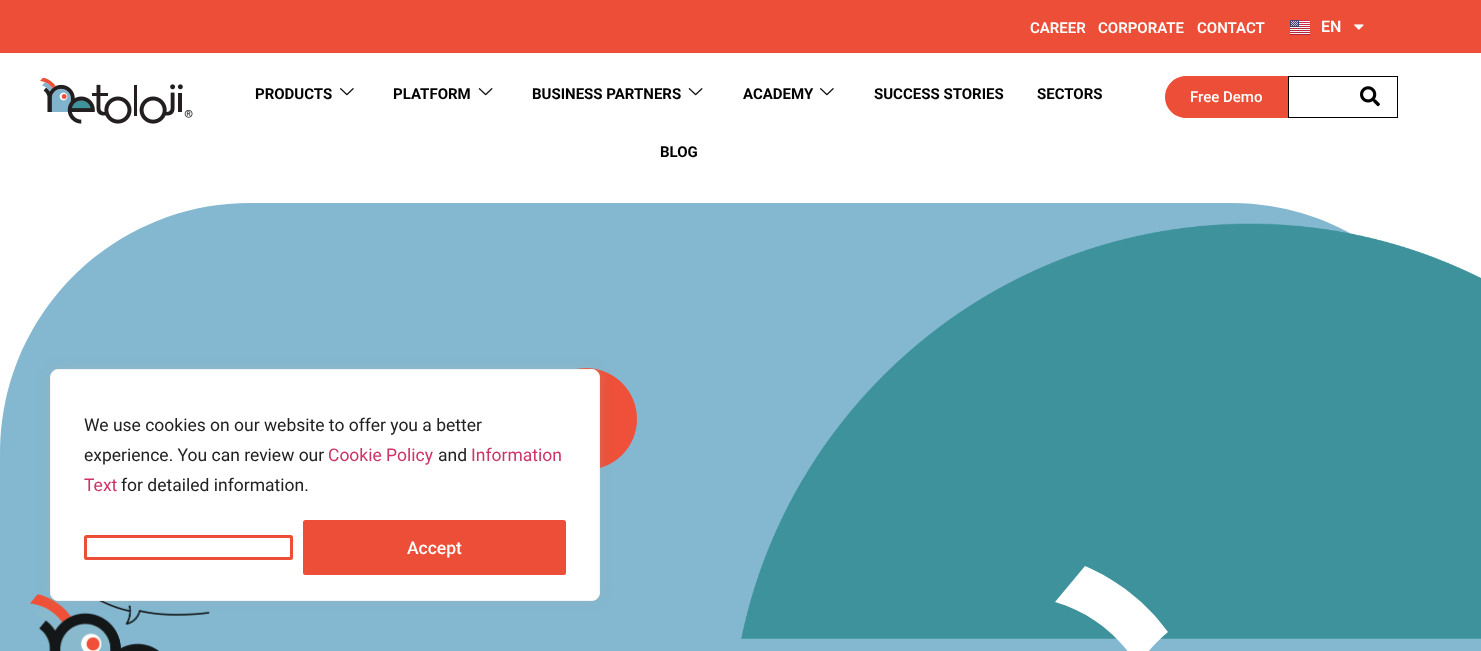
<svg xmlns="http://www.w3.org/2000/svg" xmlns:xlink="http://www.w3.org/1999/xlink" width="1481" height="651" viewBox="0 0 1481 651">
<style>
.cls-1{font:600 15px Roboto;fill:#ffffff}
.cls-2{font:600 16px Roboto;fill:#ffffff}
.cls-3{font:bold 15px Roboto;fill:#000000}
.cls-4{font:500 15px Roboto;fill:#ffffff}
.cls-5{font:17.5px Roboto;fill:#212121}
.cls-6{font:17.5px Roboto;fill:#cc3366}
.cls-7{font:500 17.5px Roboto;fill:#ffffff}
</style>
<rect width="100%" height="100%" fill="#ffffff"/>
<rect fill="#ec4e37" x="0" y="0" width="1481" height="53"/>
<image xlink:href="image0.png" x="1290" y="20" width="20" height="15"/>
<image xlink:href="image1.png" x="1354" y="24" width="10" height="6"/>
<image xlink:href="image2.png" x="40" y="78" width="153" height="46"/>
<image xlink:href="image3.png" x="340" y="88" width="14" height="8"/>
<image xlink:href="image4.png" x="478" y="88" width="15" height="8"/>
<image xlink:href="image4.png" x="688" y="88" width="15" height="8"/>
<image xlink:href="image3.png" x="820" y="88" width="14" height="8"/>
<path fill="#ec4e37" d="M1186 76H1288V118H1186C1174.5 118 1165 108.5 1165 97C1165 85.5 1174.5 76 1186 76Z"/>
<rect fill="none" stroke="#000000" x="1288.5" y="76.5" width="109" height="41"/>
<image xlink:href="image5.png" x="1360" y="86" width="20" height="21"/>
<path fill="#83b8d0" d="M250 203H1231C1369 203 1481 315 1481 453V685H0V453C0 315 112 203 250 203Z"/>
<circle fill="#ee5039" cx="586" cy="419" r="51"/>
<image xlink:href="image6.png" x="30" y="594" width="180" height="57"/>
<image xlink:href="image7.png" x="741" y="223" width="740" height="416"/>
<path fill="#ffffff" d="M1168 632C1147 603 1118 580 1085 566L1055 602C1090 612 1120 636 1138 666C1146 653 1156 642 1168 632"/>
<rect fill="#acabab" fill-opacity="0.3" filter="blur(6px)" x="50" y="368" width="550" height="232" rx="8"/>
<rect fill="#ffffff" stroke="#f4f4f4" x="50.5" y="369.5" width="549" height="231" rx="7.5"/>
<rect fill="none" stroke="#ec4e37" stroke-width="3" x="85.5" y="536.5" width="206" height="22" rx="1"/>
<rect fill="#ec4e37" stroke="#ec4e37" stroke-width="3" x="304.5" y="521.5" width="260" height="52" rx="1"/>
<text class="cls-1" x="1030" y="33">CAREER</text>
<text class="cls-1" x="1098" y="33">CORPORATE</text>
<text class="cls-1" x="1197" y="33">CONTACT</text>
<text class="cls-2" x="1321" y="32">EN</text>
<text class="cls-3" x="255" y="99">PRODUCTS</text>
<text class="cls-3" x="393" y="99">PLATFORM</text>
<text class="cls-3" x="532" y="99">BUSINESS PARTNERS</text>
<text class="cls-3" x="743" y="99">ACADEMY</text>
<text class="cls-3" x="874" y="99">SUCCESS STORIES</text>
<text class="cls-3" x="1037" y="99">SECTORS</text>
<text class="cls-3" x="660" y="157">BLOG</text>
<text class="cls-4" x="1190" y="102">Free Demo</text>
<text class="cls-5"><tspan x="84" y="431">We use cookies on our website to offer you a better</tspan><tspan x="84" y="461">experience. You can review our</tspan></text>
<text class="cls-6" x="328" y="461">Cookie Policy</text>
<text class="cls-5" x="438" y="461">and</text>
<text class="cls-6" x="471" y="461">Information</text>
<text class="cls-6" x="84" y="491">Text</text>
<text class="cls-5" x="121" y="491">for detailed information.</text>
<text class="cls-7" x="407" y="554">Accept</text>
</svg>
